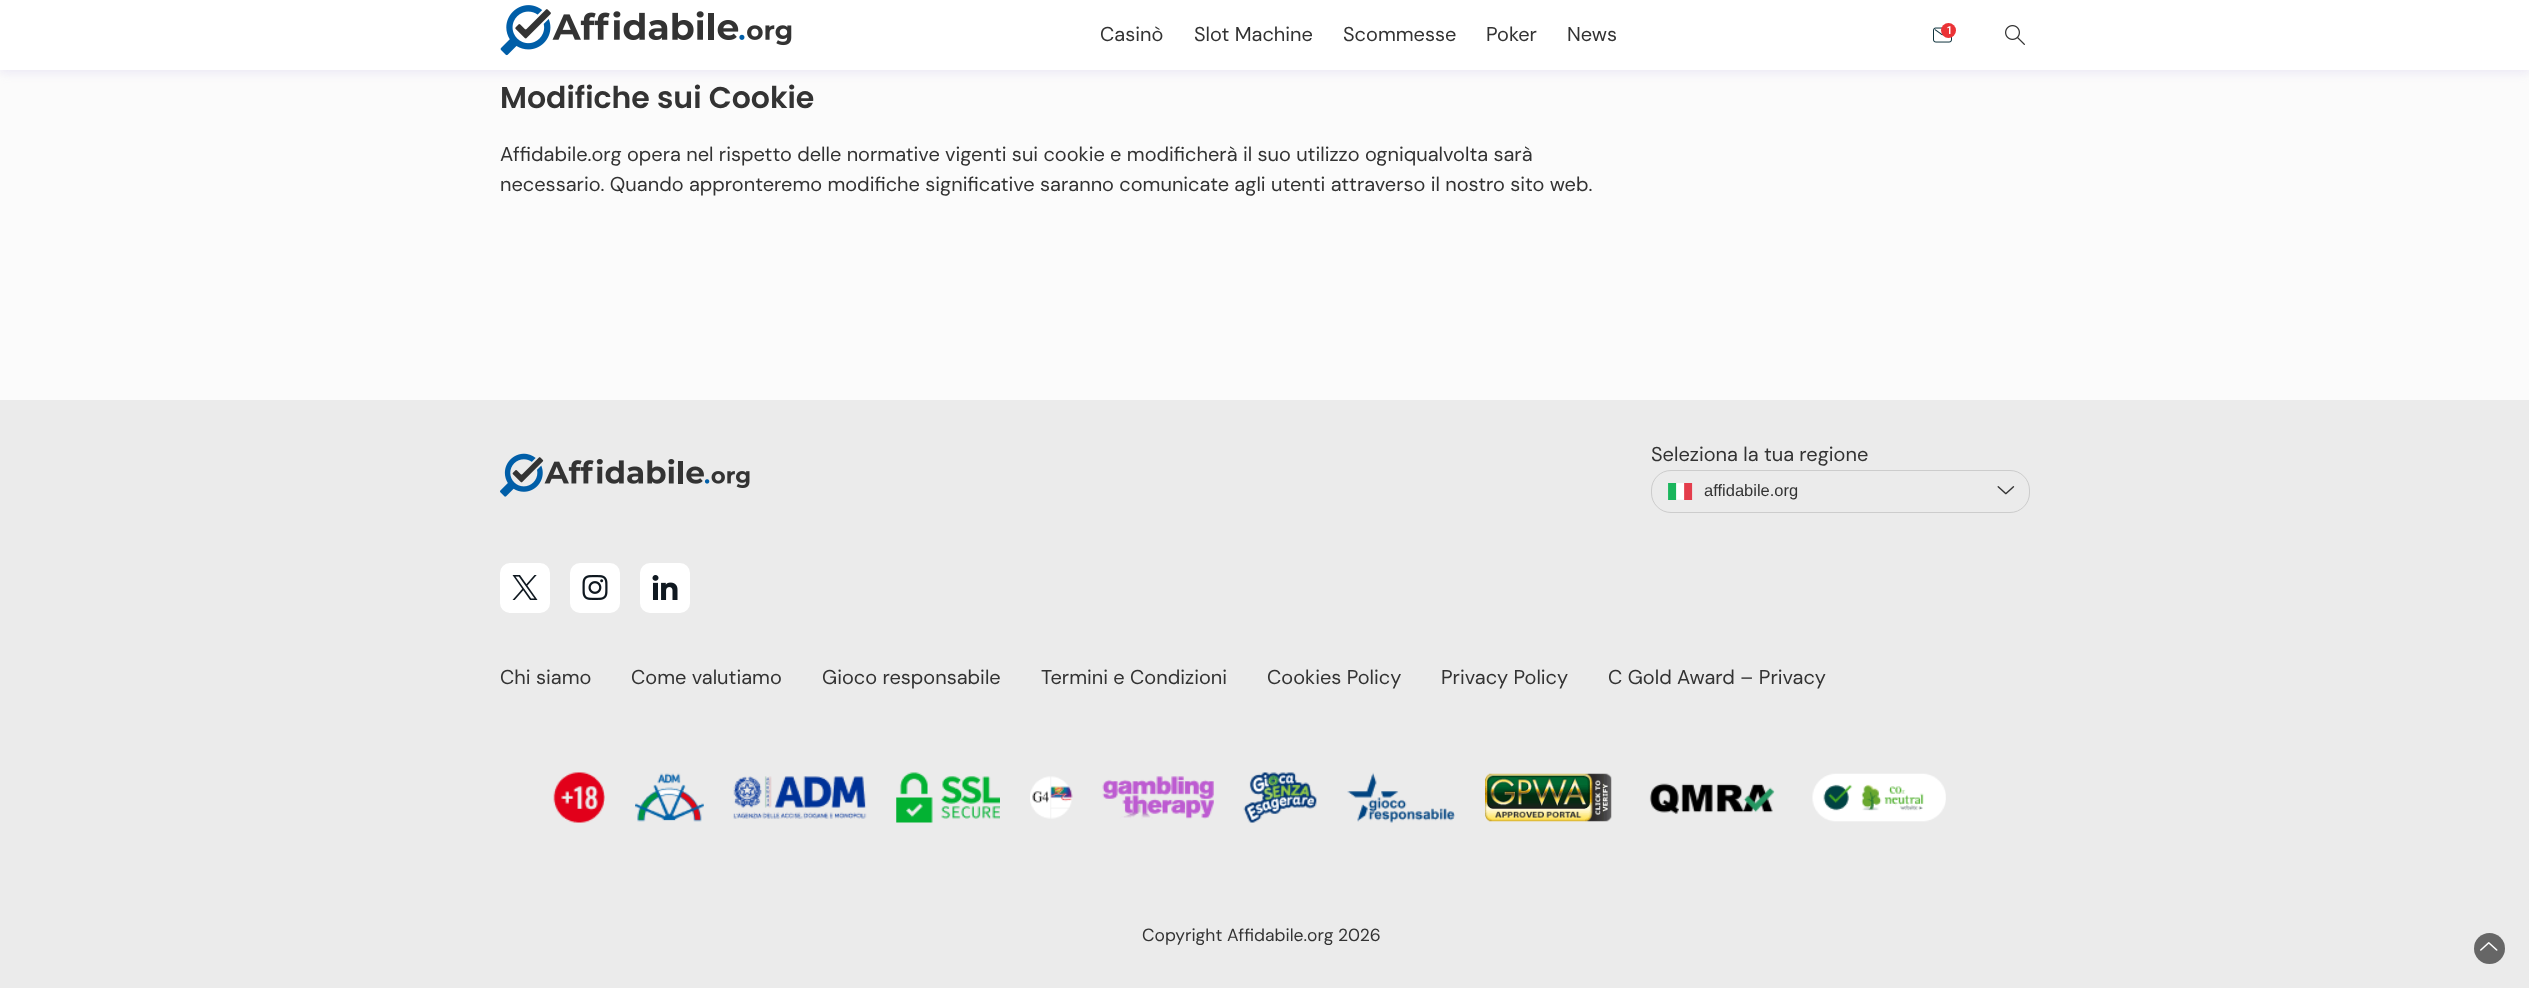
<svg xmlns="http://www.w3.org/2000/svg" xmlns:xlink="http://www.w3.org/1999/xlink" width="2529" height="988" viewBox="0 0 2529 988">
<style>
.cls-1{font:20px DM Sans;fill:#333333}
.cls-2{font:600 11px DM Sans;fill:#ffffff}
.cls-3{font:600 30px Poppins;fill:#333333}
.cls-4{font:16.5px Liberation Sans;fill:#333333}
.cls-5{font:17.5px 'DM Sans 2';fill:#333333}
</style>
<rect width="100%" height="100%" fill="#fbfbfb"/>
<rect fill="#ded8f0" fill-opacity="0.5" filter="blur(5px)" x="0" y="3" width="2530" height="70"/>
<rect fill="#ffffff" x="0" y="0" width="2529" height="70"/>
<image xlink:href="image0.png" x="500" y="5" width="292" height="51"/>
<image xlink:href="image1.png" x="1933" y="27" width="19" height="16"/>
<circle fill="#eb3336" cx="1948.5" cy="30.5" r="7.5"/>
<image xlink:href="image2.png" x="2005" y="25" width="20" height="20"/>
<rect fill="#ebebeb" x="0" y="400" width="2529" height="588"/>
<image xlink:href="image3.png" x="500" y="453" width="250" height="44"/>
<rect fill="none" stroke="#cccccc" x="1651.5" y="470.5" width="378" height="42" rx="19.5"/>
<image xlink:href="image4.png" x="1668" y="483" width="25" height="17"/>
<image xlink:href="image5.png" x="1997" y="486" width="18" height="9"/>
<rect fill="#ffffff" x="500" y="563" width="50" height="50" rx="10"/>
<image xlink:href="image6.png" x="512" y="575" width="26" height="25"/>
<rect fill="#ffffff" x="570" y="563" width="50" height="50" rx="10"/>
<image xlink:href="image7.png" x="582" y="575" width="26" height="25"/>
<rect fill="#ffffff" x="640" y="563" width="50" height="50" rx="10"/>
<image xlink:href="image8.png" x="652" y="575" width="26" height="25"/>
<image xlink:href="image9.png" x="553" y="772" width="52" height="51"/>
<image xlink:href="image10.png" x="635" y="773" width="69" height="49"/>
<image xlink:href="image11.png" x="733" y="776" width="134" height="43"/>
<image xlink:href="image12.png" x="896" y="772" width="104" height="51"/>
<image xlink:href="image13.png" x="1030" y="776" width="43" height="43"/>
<image xlink:href="image14.png" x="1102" y="776" width="112" height="43"/>
<image xlink:href="image15.png" x="1243" y="772" width="74" height="51"/>
<image xlink:href="image16.png" x="1347" y="772" width="108" height="51"/>
<image xlink:href="image17.png" x="1485" y="773" width="127" height="49"/>
<image xlink:href="image18.png" x="1649" y="783" width="126" height="31"/>
<image xlink:href="image19.png" x="1812" y="773" width="134" height="49"/>
<circle fill="#666666" cx="2489.5" cy="948.5" r="15.5"/>
<image xlink:href="image20.png" x="2480" y="942" width="18" height="9"/>
<text class="cls-1" x="1100" y="41">Casinò</text>
<text class="cls-1" x="1194" y="41">Slot Machine</text>
<text class="cls-1" x="1343" y="41">Scommesse</text>
<text class="cls-1" x="1486" y="41">Poker</text>
<text class="cls-1" x="1567" y="41">News</text>
<text class="cls-2" x="1947" y="34">1</text>
<text class="cls-3" x="500" y="108">Modifiche sui Cookie</text>
<text class="cls-1"><tspan x="500" y="161">Affidabile.org opera nel rispetto delle normative vigenti sui cookie e modificherà il suo utilizzo ogniqualvolta sarà</tspan><tspan x="500" y="191">necessario. Quando appronteremo modifiche significative saranno comunicate agli utenti attraverso il nostro sito web.</tspan></text>
<text class="cls-1" x="1651" y="461">Seleziona la tua regione</text>
<text class="cls-4" x="1704" y="496">affidabile.org</text>
<text class="cls-1" x="500" y="684">Chi siamo</text>
<text class="cls-1" x="631" y="684">Come valutiamo</text>
<text class="cls-1" x="822" y="684">Gioco responsabile</text>
<text class="cls-1" x="1041" y="684">Termini e Condizioni</text>
<text class="cls-1" x="1267" y="684">Cookies Policy</text>
<text class="cls-1" x="1441" y="684">Privacy Policy</text>
<text class="cls-1" x="1608" y="684">C Gold Award – Privacy</text>
<text class="cls-5" x="1142" y="941">Copyright Affidabile.org 2026</text>
</svg>
